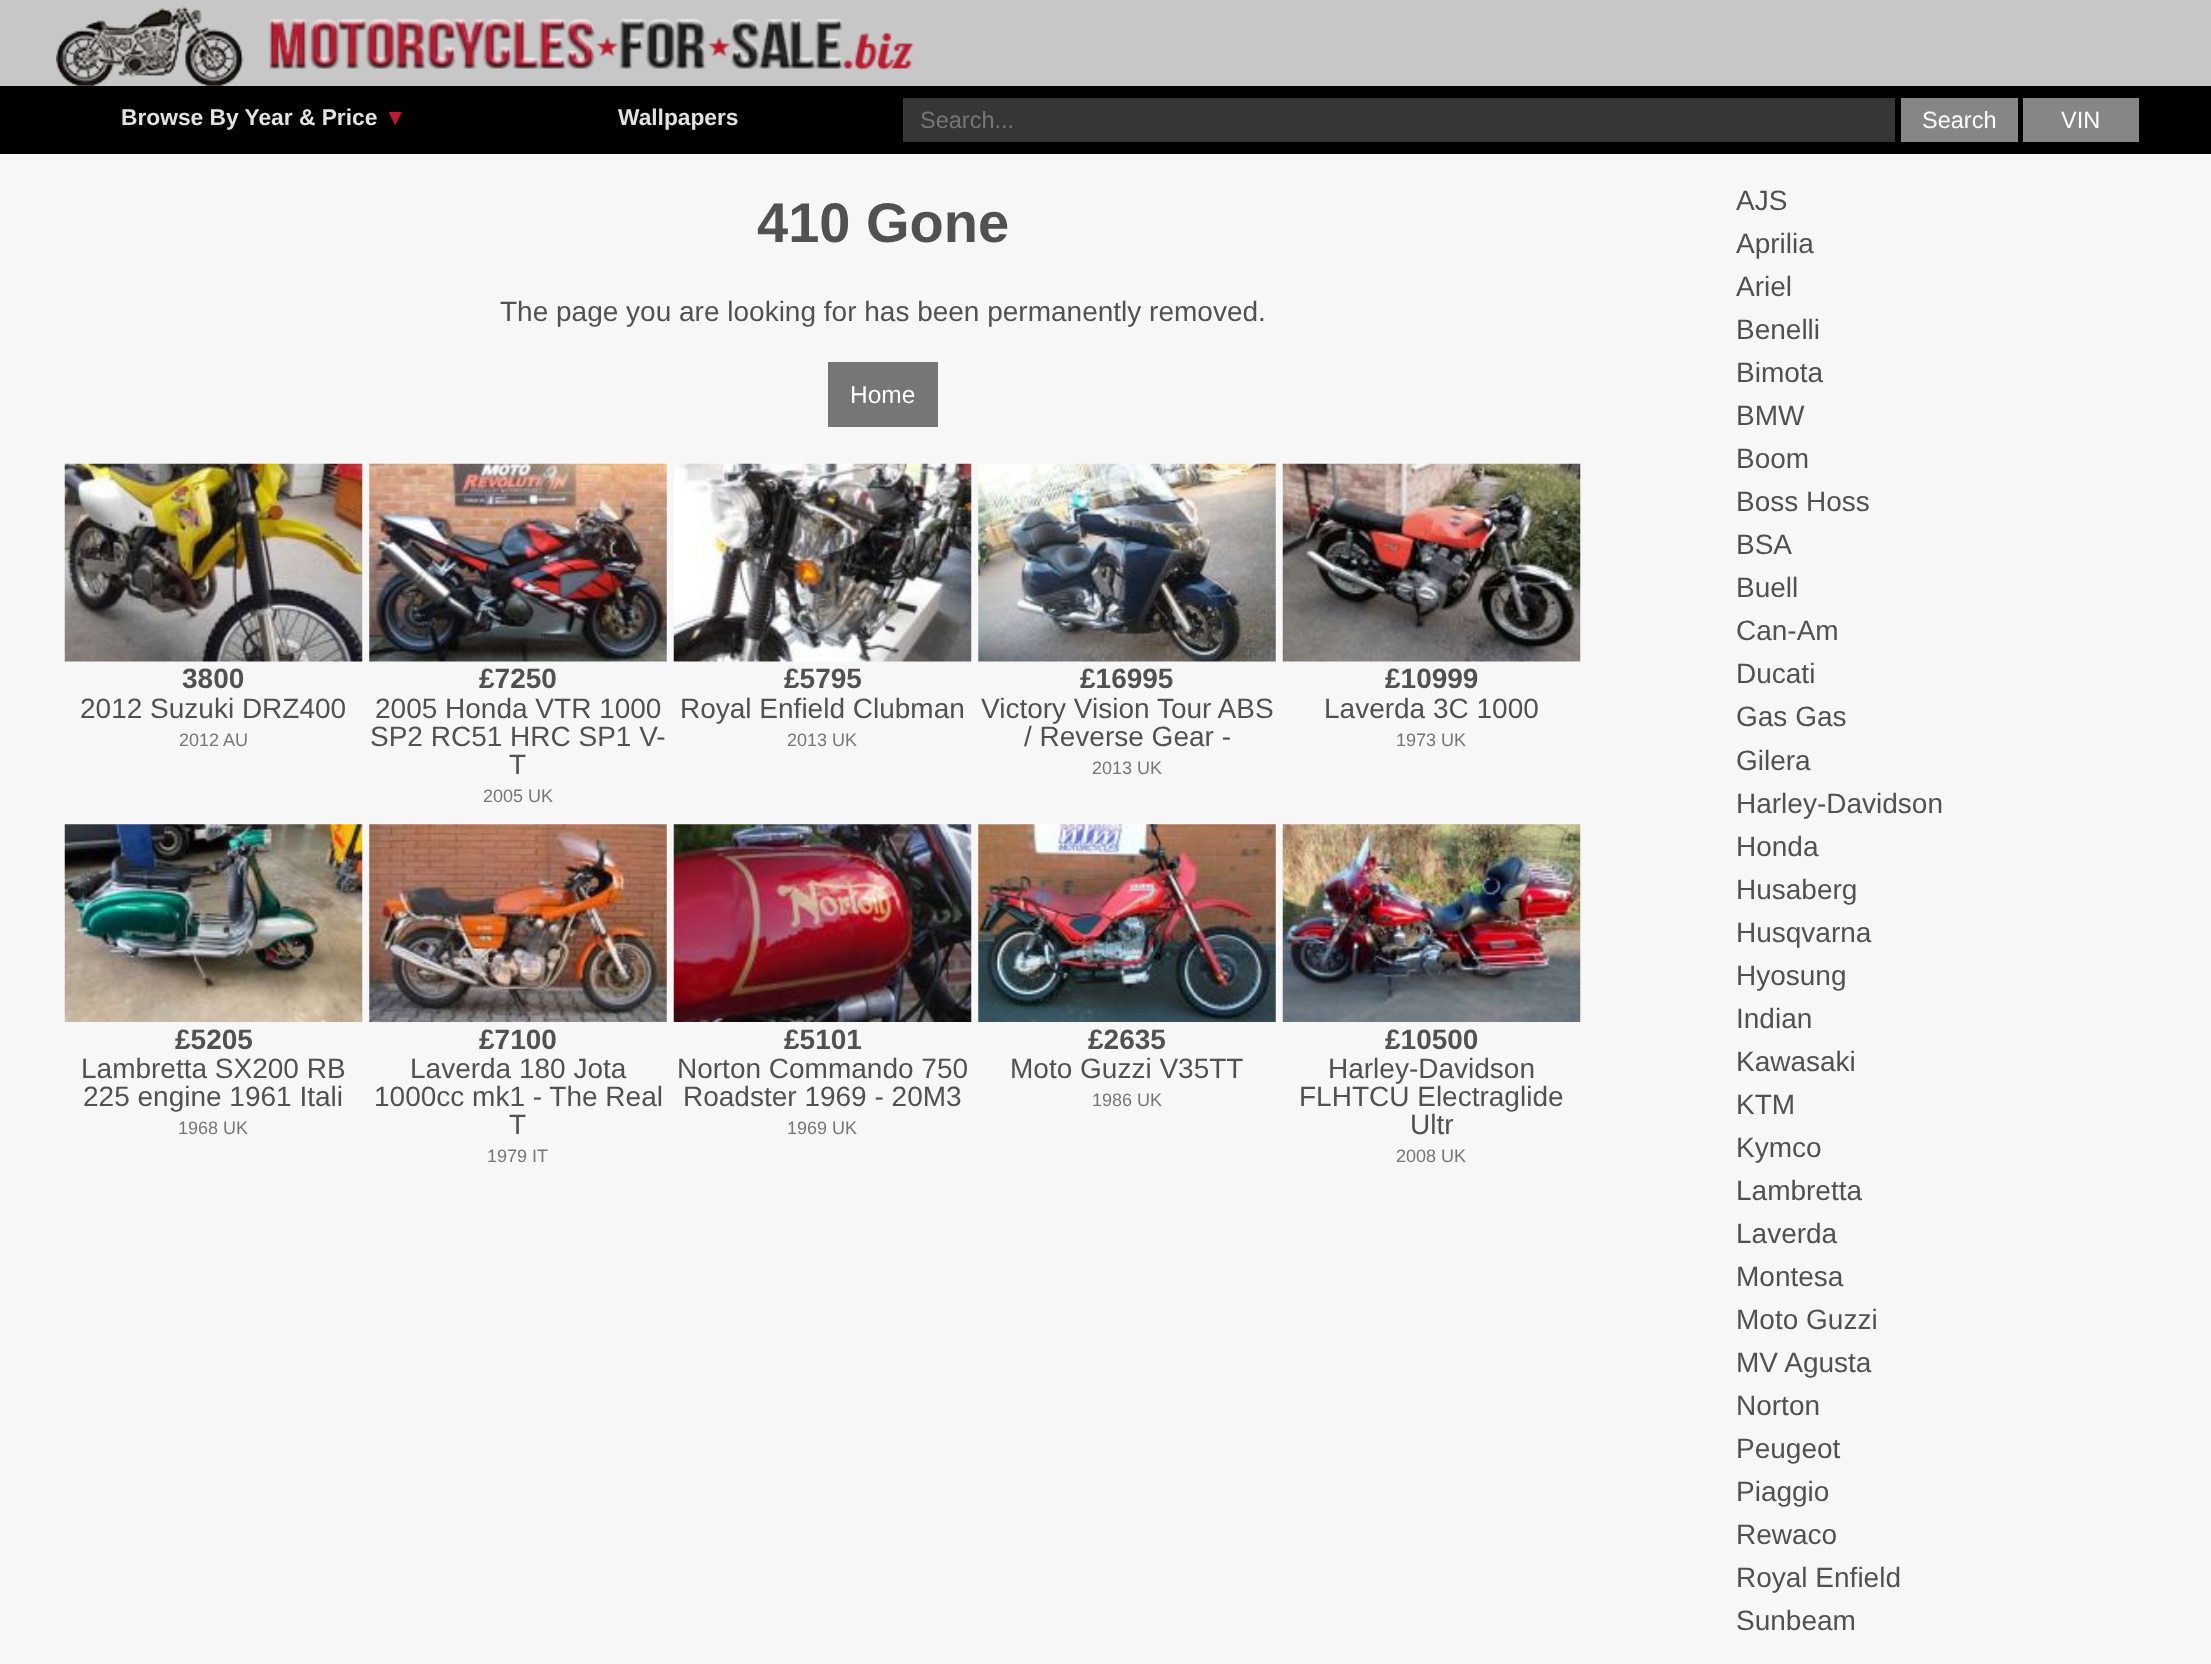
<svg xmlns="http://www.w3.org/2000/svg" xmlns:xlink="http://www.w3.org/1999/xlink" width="2211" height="1664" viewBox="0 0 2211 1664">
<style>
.cls-1{font:bold 22.75px Liberation Sans;fill:#e2e2e2}
.cls-2{font:bold 22.75px Liberation Sans;fill:#bc1b32}
.cls-3{font:23.5px Liberation Sans;fill:#767676}
.cls-4{font:23.5px Liberation Sans;fill:#ffffff}
.cls-5{font:bold 56px Liberation Sans;fill:#515151}
.cls-6{font:28px Liberation Sans;fill:#515151}
.cls-7{font:24.5px Liberation Sans;fill:#ffffff}
.cls-8{font:bold 28px Liberation Sans;fill:#515151}
.cls-9{font:18px Liberation Sans;fill:#767676}
</style>
<rect width="100%" height="100%" fill="#f7f7f8"/>
<rect fill="#c7c7c7" x="0" y="0" width="2211" height="86"/>
<image xlink:href="image0.png" x="56" y="7" width="858" height="79"/>
<rect fill="#000000" x="0" y="86" width="2211" height="68"/>
<rect fill="#363636" x="903" y="98" width="992" height="44"/>
<rect fill="#868686" x="1901" y="98" width="117" height="44"/>
<rect fill="#868686" x="2023" y="98" width="116" height="44"/>
<rect fill="#767676" x="828" y="362" width="110" height="65"/>
<image xlink:href="image1.png" x="64" y="463" width="299" height="199"/>
<image xlink:href="image2.png" x="369" y="463" width="298" height="199"/>
<image xlink:href="image3.png" x="673" y="463" width="299" height="199"/>
<image xlink:href="image4.png" x="978" y="463" width="298" height="199"/>
<image xlink:href="image5.png" x="1282" y="463" width="299" height="199"/>
<image xlink:href="image6.png" x="64" y="824" width="299" height="198"/>
<image xlink:href="image7.png" x="369" y="824" width="298" height="198"/>
<image xlink:href="image8.png" x="673" y="824" width="299" height="198"/>
<image xlink:href="image9.png" x="978" y="824" width="298" height="198"/>
<image xlink:href="image10.png" x="1282" y="824" width="299" height="198"/>
<text class="cls-1" x="121" y="125">Browse By Year &amp; Price</text>
<text class="cls-2" x="384" y="125">▼</text>
<text class="cls-1" x="618" y="125">Wallpapers</text>
<text class="cls-3" x="920" y="128">Search...</text>
<text class="cls-4" x="1922" y="128">Search</text>
<text class="cls-4" x="2061" y="128">VIN</text>
<text class="cls-5" x="757" y="242">410 Gone</text>
<text class="cls-6" x="500" y="321">The page you are looking for has been permanently removed.</text>
<text class="cls-7" x="850" y="403">Home</text>
<text class="cls-8" x="182" y="688">3800</text>
<text class="cls-6" x="80" y="718">2012 Suzuki DRZ400</text>
<text class="cls-9" x="179" y="746">2012 AU</text>
<text class="cls-8" x="479" y="688">£7250</text>
<text class="cls-6" x="375" y="718">2005 Honda VTR 1000</text>
<text class="cls-6" x="370" y="746">SP2 RC51 HRC SP1 V-</text>
<text class="cls-6" x="509" y="774">T</text>
<text class="cls-9" x="483" y="802">2005 UK</text>
<text class="cls-8" x="784" y="688">£5795</text>
<text class="cls-6" x="680" y="718">Royal Enfield Clubman</text>
<text class="cls-9" x="787" y="746">2013 UK</text>
<text class="cls-8" x="1080" y="688">£16995</text>
<text class="cls-6" x="981" y="718">Victory Vision Tour ABS</text>
<text class="cls-6" x="1024" y="746">/ Reverse Gear -</text>
<text class="cls-9" x="1092" y="774">2013 UK</text>
<text class="cls-8" x="1385" y="688">£10999</text>
<text class="cls-6" x="1324" y="718">Laverda 3C 1000</text>
<text class="cls-9" x="1396" y="746">1973 UK</text>
<text class="cls-8" x="175" y="1049">£5205</text>
<text class="cls-6" x="81" y="1078">Lambretta SX200 RB</text>
<text class="cls-6" x="83" y="1106">225 engine 1961 Itali</text>
<text class="cls-9" x="178" y="1134">1968 UK</text>
<text class="cls-8" x="479" y="1049">£7100</text>
<text class="cls-6" x="410" y="1078">Laverda 180 Jota</text>
<text class="cls-6" x="374" y="1106">1000cc mk1 - The Real</text>
<text class="cls-6" x="509" y="1134">T</text>
<text class="cls-9" x="487" y="1162">1979 IT</text>
<text class="cls-8" x="784" y="1049">£5101</text>
<text class="cls-6" x="677" y="1078">Norton Commando 750</text>
<text class="cls-6" x="683" y="1106">Roadster 1969 - 20M3</text>
<text class="cls-9" x="787" y="1134">1969 UK</text>
<text class="cls-8" x="1088" y="1049">£2635</text>
<text class="cls-6" x="1010" y="1078">Moto Guzzi V35TT</text>
<text class="cls-9" x="1092" y="1106">1986 UK</text>
<text class="cls-8" x="1385" y="1049">£10500</text>
<text class="cls-6" x="1328" y="1078">Harley-Davidson</text>
<text class="cls-6" x="1299" y="1106">FLHTCU Electraglide</text>
<text class="cls-6" x="1410" y="1134">Ultr</text>
<text class="cls-9" x="1396" y="1162">2008 UK</text>
<text class="cls-6"><tspan x="1736" y="210">AJS</tspan><tspan x="1736" y="253">Aprilia</tspan><tspan x="1736" y="296">Ariel</tspan><tspan x="1736" y="339">Benelli</tspan><tspan x="1736" y="382">Bimota</tspan><tspan x="1736" y="425">BMW</tspan><tspan x="1736" y="468">Boom</tspan><tspan x="1736" y="511">Boss Hoss</tspan><tspan x="1736" y="554">BSA</tspan><tspan x="1736" y="597">Buell</tspan><tspan x="1736" y="640">Can-Am</tspan><tspan x="1736" y="683">Ducati</tspan><tspan x="1736" y="726">Gas Gas</tspan><tspan x="1736" y="770">Gilera</tspan><tspan x="1736" y="813">Harley-Davidson</tspan><tspan x="1736" y="856">Honda</tspan><tspan x="1736" y="899">Husaberg</tspan><tspan x="1736" y="942">Husqvarna</tspan><tspan x="1736" y="985">Hyosung</tspan><tspan x="1736" y="1028">Indian</tspan><tspan x="1736" y="1071">Kawasaki</tspan><tspan x="1736" y="1114">KTM</tspan><tspan x="1736" y="1157">Kymco</tspan><tspan x="1736" y="1200">Lambretta</tspan><tspan x="1736" y="1243">Laverda</tspan><tspan x="1736" y="1286">Montesa</tspan><tspan x="1736" y="1329">Moto Guzzi</tspan><tspan x="1736" y="1372">MV Agusta</tspan><tspan x="1736" y="1415">Norton</tspan><tspan x="1736" y="1458">Peugeot</tspan><tspan x="1736" y="1501">Piaggio</tspan><tspan x="1736" y="1544">Rewaco</tspan><tspan x="1736" y="1587">Royal Enfield</tspan><tspan x="1736" y="1630">Sunbeam</tspan></text>
</svg>
